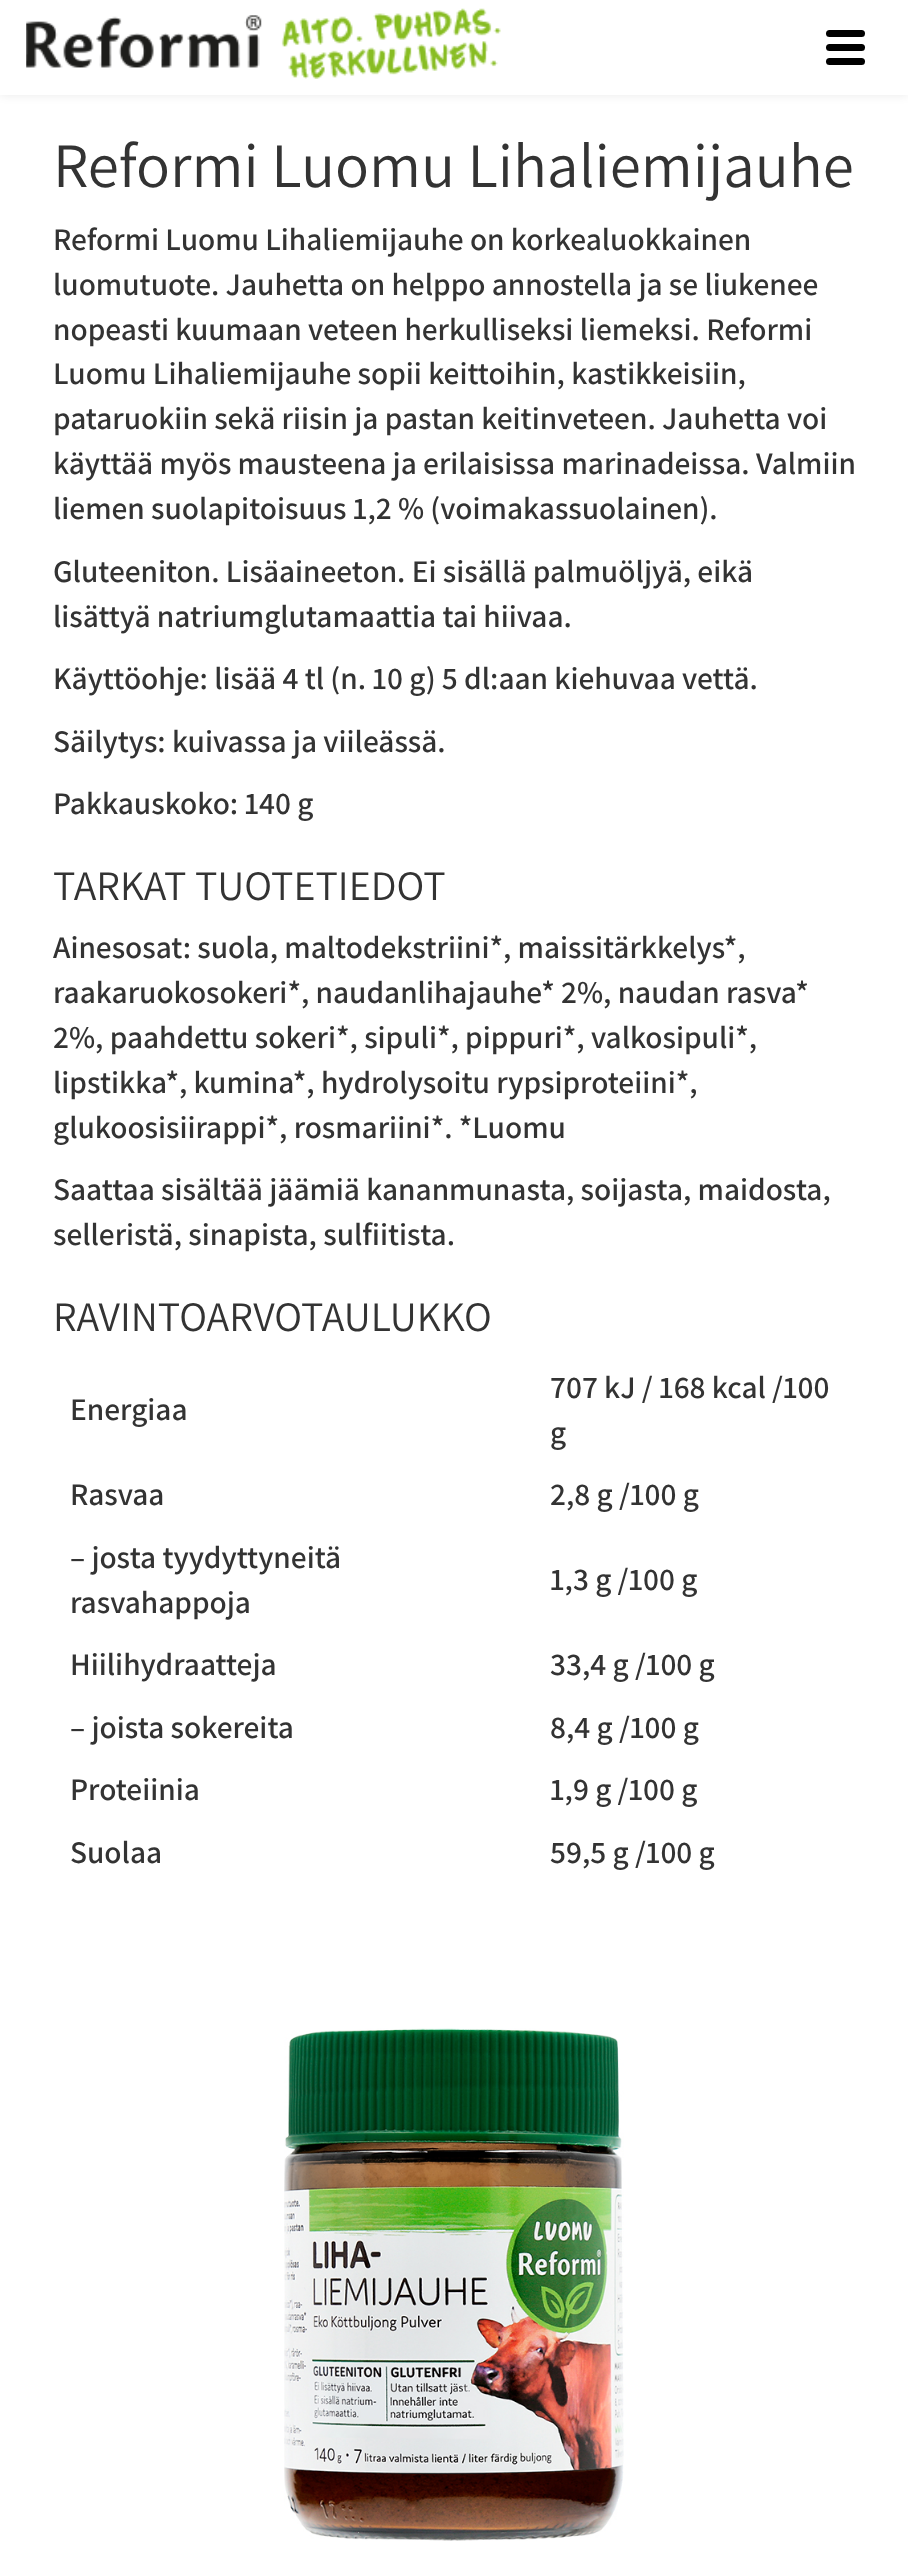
<svg xmlns="http://www.w3.org/2000/svg" xmlns:xlink="http://www.w3.org/1999/xlink" width="908" height="2551" viewBox="0 0 908 2551">
<style>
.cls-1{font:63px Assistant;fill:#333333}
.cls-2{font:600 31.5px Assistant;fill:#333333}
.cls-3{font:42px Assistant;fill:#333333}
</style>
<rect width="100%" height="100%" fill="#ffffff"/>
<rect fill="#000000" fill-opacity="0.07" filter="blur(4.5px)" x="0" y="2" width="908" height="94"/>
<rect fill="#ffffff" x="0" y="0" width="908" height="95"/>
<image xlink:href="image0.png" x="26" y="8" width="475" height="71"/>
<rect fill="#000000" x="826" y="30" width="39" height="7" rx="3.5"/>
<rect fill="#000000" x="826" y="44" width="39" height="7" rx="3.5"/>
<rect fill="#000000" x="826" y="58" width="39" height="7" rx="3.5"/>
<image xlink:href="image1.png" x="284" y="2028" width="340" height="513"/>
<text class="cls-1" x="53" y="187">Reformi Luomu Lihaliemijauhe</text>
<text class="cls-2"><tspan x="53" y="250">Reformi Luomu Lihaliemijauhe on korkealuokkainen</tspan><tspan x="53" y="295">luomutuote. Jauhetta on helppo annostella ja se liukenee</tspan><tspan x="53" y="340">nopeasti kuumaan veteen herkulliseksi liemeksi. Reformi</tspan><tspan x="53" y="384">Luomu Lihaliemijauhe sopii keittoihin, kastikkeisiin,</tspan><tspan x="53" y="429">pataruokiin sekä riisin ja pastan keitinveteen. Jauhetta voi</tspan><tspan x="53" y="474">käyttää myös mausteena ja erilaisissa marinadeissa. Valmiin</tspan><tspan x="53" y="519">liemen suolapitoisuus 1,2 % (voimakassuolainen).</tspan></text>
<text class="cls-2"><tspan x="53" y="582">Gluteeniton. Lisäaineeton. Ei sisällä palmuöljyä, eikä</tspan><tspan x="53" y="627">lisättyä natriumglutamaattia tai hiivaa.</tspan><tspan x="53" y="689">Käyttöohje: lisää 4 tl (n. 10 g) 5 dl:aan kiehuvaa vettä.</tspan></text>
<text class="cls-2"><tspan x="53" y="752">Säilytys: kuivassa ja viileässä.</tspan><tspan x="53" y="814">Pakkauskoko: 140 g</tspan></text>
<text class="cls-3" x="53" y="900">TARKAT TUOTETIEDOT</text>
<text class="cls-2"><tspan x="53" y="958">Ainesosat: suola, maltodekstriini*, maissitärkkelys*,</tspan><tspan x="53" y="1003">raakaruokosokeri*, naudanlihajauhe* 2%, naudan rasva*</tspan><tspan x="53" y="1048">2%, paahdettu sokeri*, sipuli*, pippuri*, valkosipuli*,</tspan><tspan x="53" y="1093">lipstikka*, kumina*, hydrolysoitu rypsiproteiini*,</tspan><tspan x="53" y="1138">glukoosisiirappi*, rosmariini*. *Luomu</tspan><tspan x="53" y="1200">Saattaa sisältää jäämiä kananmunasta, soijasta, maidosta,</tspan><tspan x="53" y="1245">selleristä, sinapista, sulfiitista.</tspan></text>
<text class="cls-3" x="53" y="1331">RAVINTOARVOTAULUKKO</text>
<text class="cls-2" x="70" y="1420">Energiaa</text>
<text class="cls-2"><tspan x="550" y="1398">707 kJ / 168 kcal /100</tspan><tspan x="550" y="1443">g</tspan></text>
<text class="cls-2" x="70" y="1505">Rasvaa</text>
<text class="cls-2" x="550" y="1505">2,8 g /100 g</text>
<text class="cls-2"><tspan x="70" y="1568">– josta tyydyttyneitä</tspan><tspan x="70" y="1613">rasvahappoja</tspan></text>
<text class="cls-2" x="550" y="1590">1,3 g /100 g</text>
<text class="cls-2" x="70" y="1675">Hiilihydraatteja</text>
<text class="cls-2" x="550" y="1675">33,4 g /100 g</text>
<text class="cls-2" x="70" y="1738">– joista sokereita</text>
<text class="cls-2" x="550" y="1738">8,4 g /100 g</text>
<text class="cls-2" x="70" y="1800">Proteiinia</text>
<text class="cls-2" x="550" y="1800">1,9 g /100 g</text>
<text class="cls-2" x="70" y="1863">Suolaa</text>
<text class="cls-2" x="550" y="1863">59,5 g /100 g</text>
</svg>
